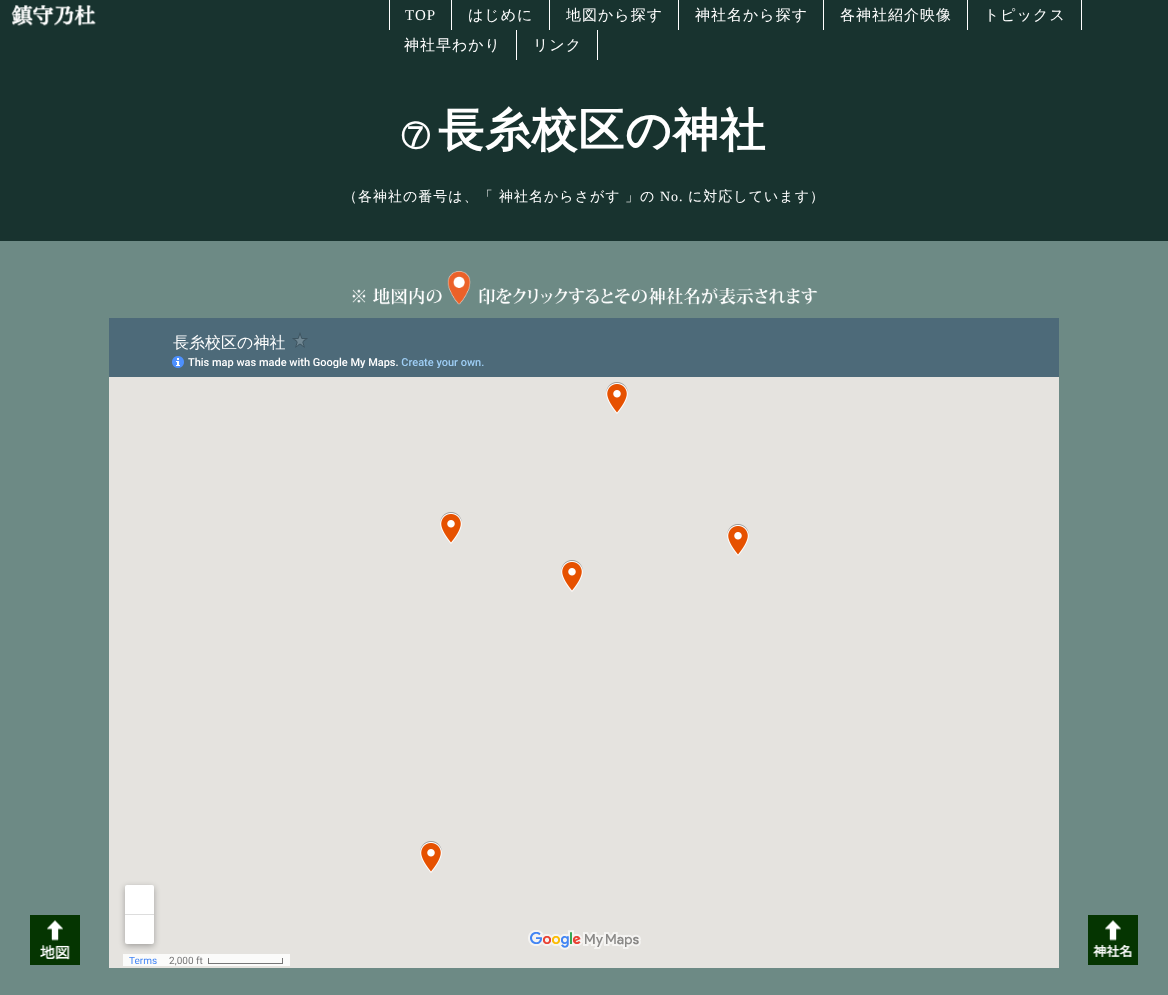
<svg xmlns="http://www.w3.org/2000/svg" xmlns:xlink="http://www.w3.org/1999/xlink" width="1168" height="995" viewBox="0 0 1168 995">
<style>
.cls-1{font:15px Liberation Serif;letter-spacing:1px;fill:#ffffff}
.cls-2{font:500 15px WenQuanYi Zen Hei;letter-spacing:1px;fill:#ffffff}
.cls-3{font:bold 29px WenQuanYi Zen Hei;letter-spacing:1px;fill:#ffffff}
.cls-4{font:bold 45.75px WenQuanYi Zen Hei;letter-spacing:1px;fill:#ffffff}
.cls-5{font:500 14px WenQuanYi Zen Hei;letter-spacing:1px;fill:#ffffff}
.cls-6{font:14px Liberation Serif;letter-spacing:1px;fill:#ffffff}
</style>
<rect width="100%" height="100%" fill="#18332f"/>
<image xlink:href="image0.png" x="11" y="5" width="85" height="21"/>
<rect fill="#ffffff" x="451" y="0" width="1" height="30"/>
<rect fill="#ffffff" x="389" y="0" width="1" height="30"/>
<rect fill="#ffffff" x="549" y="0" width="1" height="30"/>
<rect fill="#ffffff" x="678" y="0" width="1" height="30"/>
<rect fill="#ffffff" x="823" y="0" width="1" height="30"/>
<rect fill="#ffffff" x="967" y="0" width="1" height="30"/>
<rect fill="#ffffff" x="1081" y="0" width="1" height="30"/>
<rect fill="#ffffff" x="516" y="30" width="1" height="30"/>
<rect fill="#ffffff" x="597" y="30" width="1" height="30"/>
<rect fill="#6d8a85" x="0" y="241" width="1168" height="754"/>
<image xlink:href="image1.png" x="352" y="271" width="466" height="34"/>
<image xlink:href="image2.png" x="109" y="318" width="950" height="650"/>
<image xlink:href="image3.png" x="30" y="915" width="50" height="50"/>
<image xlink:href="image4.png" x="1088" y="915" width="50" height="50"/>
<text class="cls-1" x="405" y="20">TOP</text>
<text class="cls-2" x="468" y="20">はじめに</text>
<text class="cls-2" x="566" y="20">地図から探す</text>
<text class="cls-2" x="695" y="20">神社名から探す</text>
<text class="cls-2" x="840" y="20">各神社紹介映像</text>
<text class="cls-2" x="984" y="20">トピックス</text>
<text class="cls-2" x="404" y="50">神社早わかり</text>
<text class="cls-2" x="533" y="50">リンク</text>
<text class="cls-3" x="401" y="146">⑦</text>
<text class="cls-4" x="438" y="146">長糸校区の神社</text>
<text class="cls-5" x="343" y="201">（各神社の番号は、「</text>
<text class="cls-5" x="499" y="201">神社名からさがす</text>
<text class="cls-5" x="625" y="201">」の</text>
<text class="cls-6" x="660" y="201">No.</text>
<text class="cls-5" x="688" y="201">に対応しています）</text>
</svg>
